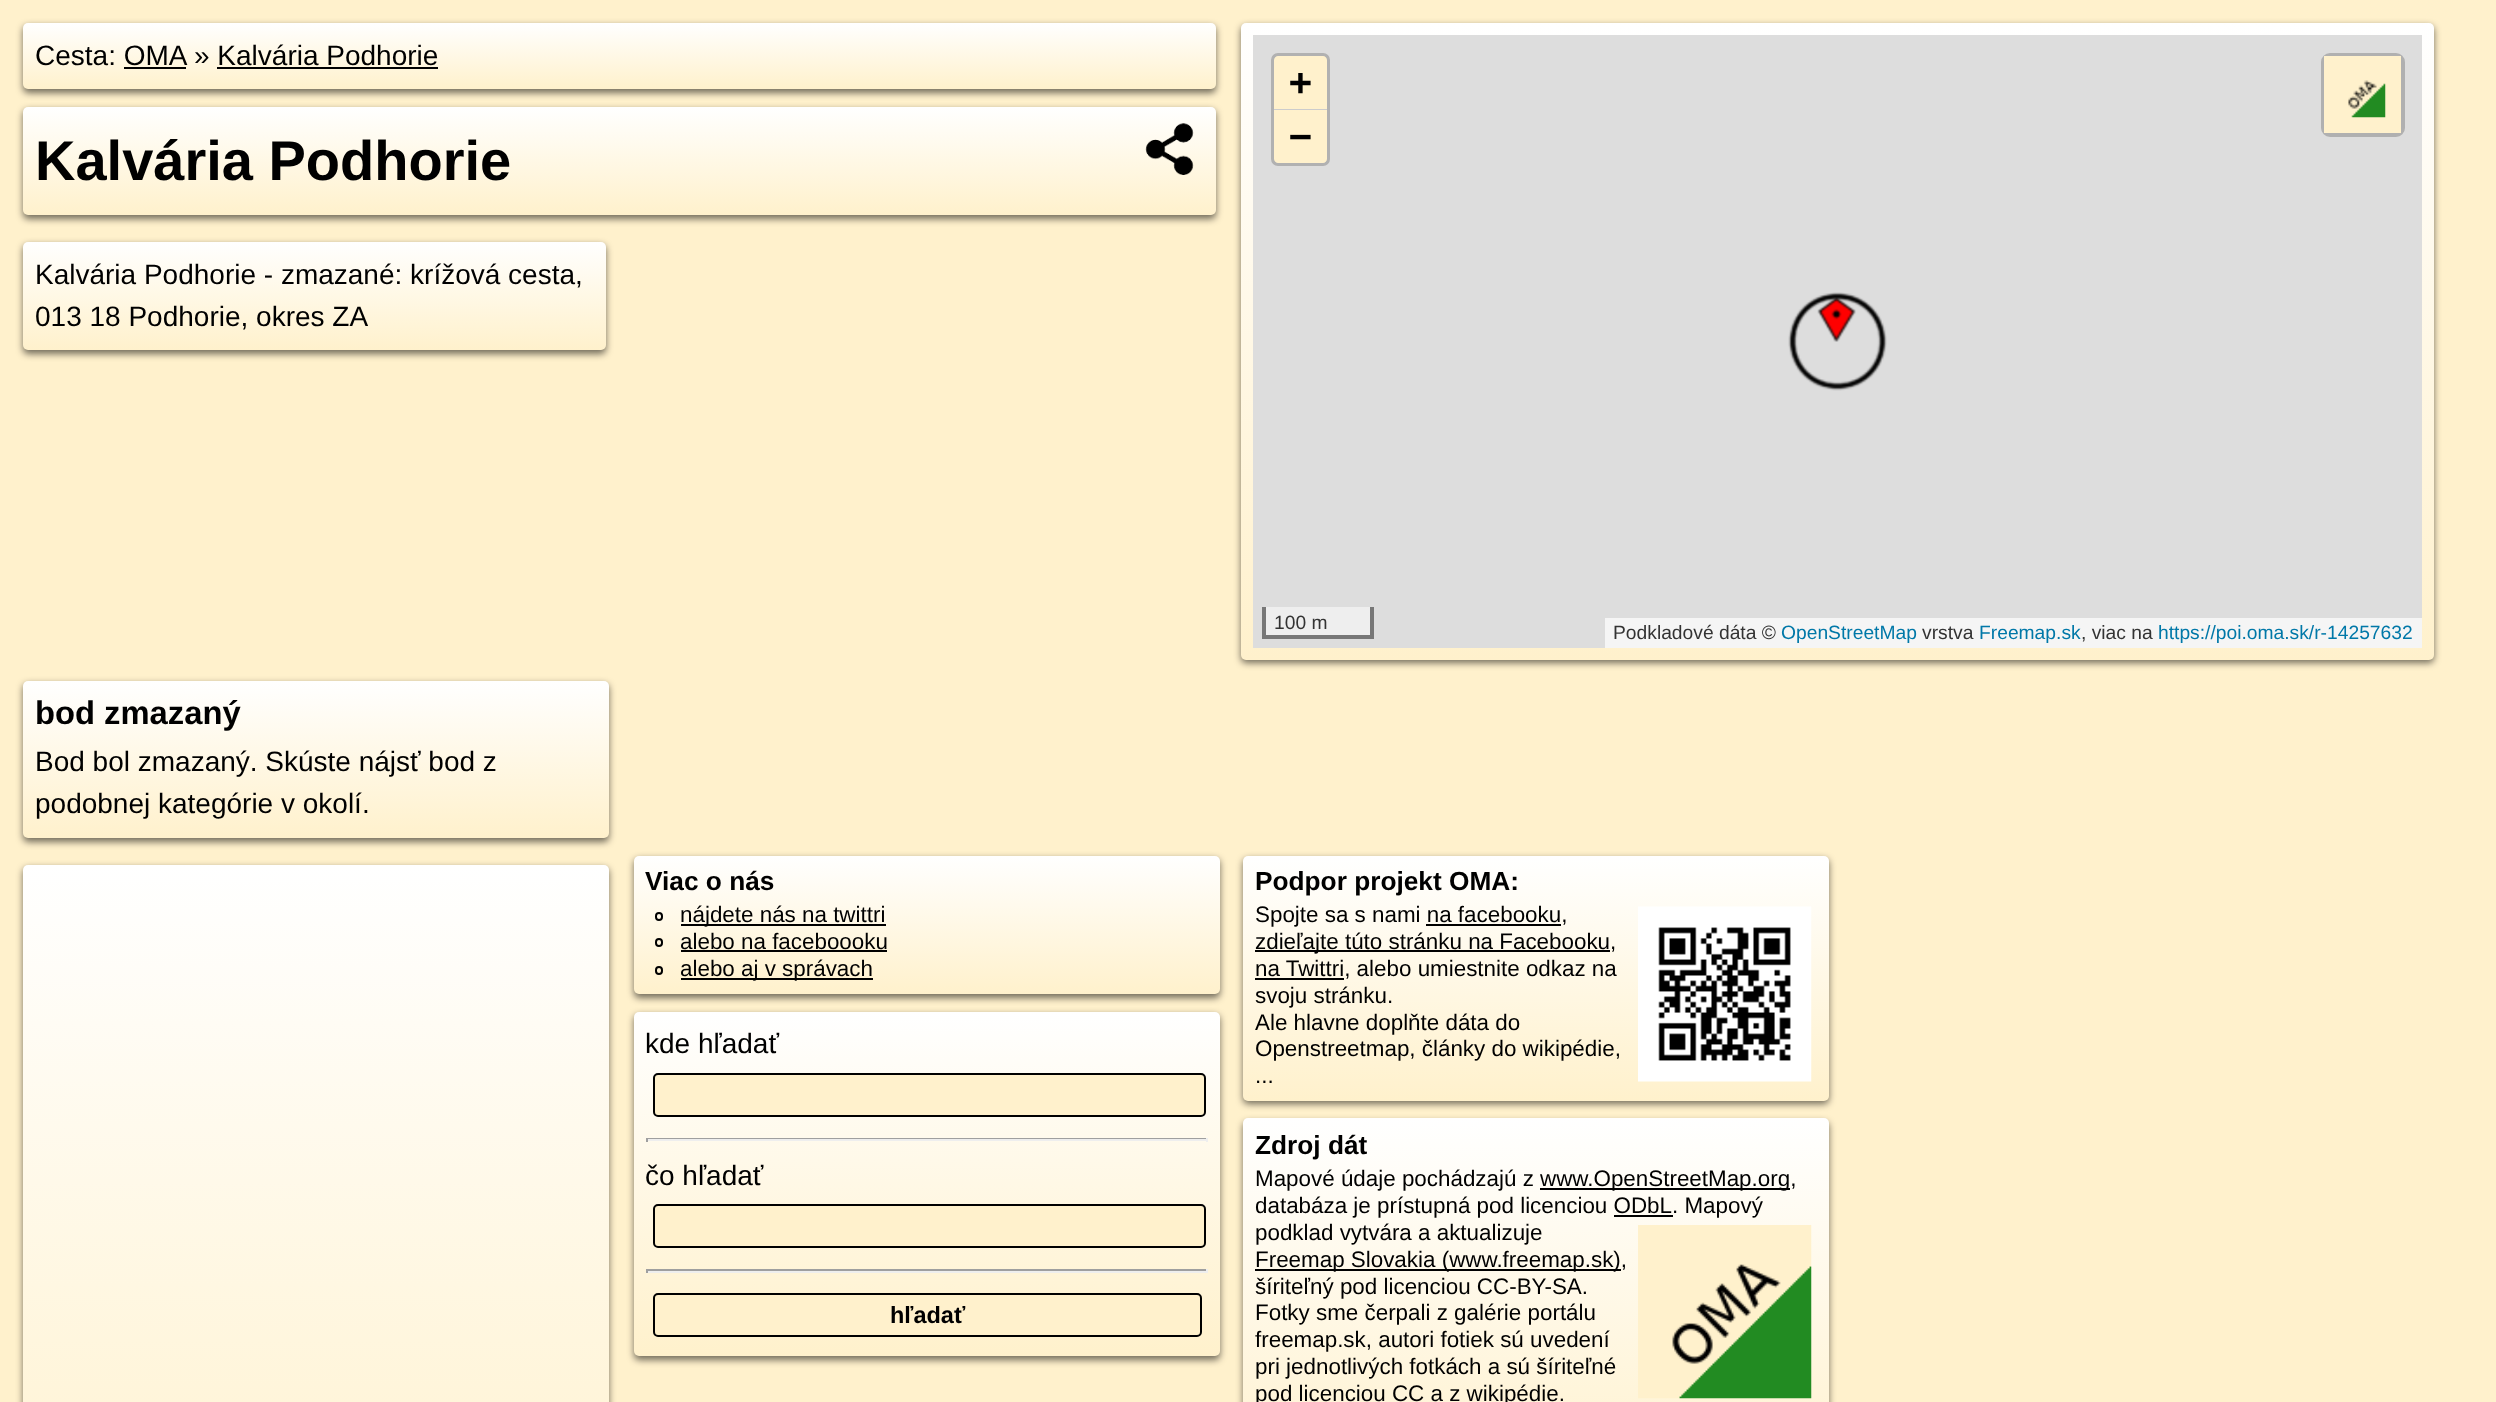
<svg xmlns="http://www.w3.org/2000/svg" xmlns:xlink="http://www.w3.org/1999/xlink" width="2496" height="1402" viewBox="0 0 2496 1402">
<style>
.cls-1{font:28px Liberation Sans;fill:#000000}
.cls-2{font:bold 56px Liberation Sans;fill:#000000}
.cls-3{font:bold 38px DejaVu Sans Mono;fill:#000000}
.cls-4{font:19.25px Liberation Sans;fill:#333333}
.cls-5{font:19.25px Liberation Sans;fill:#0078a8}
.cls-6{font:bold 32.75px Liberation Sans;fill:#000000}
.cls-7{font:bold 26.25px Liberation Sans;fill:#000000}
.cls-8{font:22.4px Liberation Sans;fill:#000000}
.cls-9{font:bold 23.5px Liberation Sans;fill:#000000}
</style>
<defs>
<linearGradient id="g1" gradientUnits="userSpaceOnUse" x1="620" y1="23" x2="620" y2="89"><stop offset="0" stop-color="#ffffff"/><stop offset="1" stop-color="#fff1cc"/></linearGradient>
<linearGradient id="g2" gradientUnits="userSpaceOnUse" x1="620" y1="107" x2="620" y2="215"><stop offset="0" stop-color="#ffffff"/><stop offset="1" stop-color="#fff1cc"/></linearGradient>
<linearGradient id="g3" gradientUnits="userSpaceOnUse" x1="314" y1="241" x2="314" y2="350"><stop offset="0" stop-color="#ffffff"/><stop offset="1" stop-color="#fff1cc"/></linearGradient>
<linearGradient id="g4" gradientUnits="userSpaceOnUse" x1="1838" y1="23" x2="1838" y2="660"><stop offset="0" stop-color="#ffffff"/><stop offset="1" stop-color="#fff1cc"/></linearGradient>
<linearGradient id="g5" gradientUnits="userSpaceOnUse" x1="316" y1="681" x2="316" y2="838"><stop offset="0" stop-color="#ffffff"/><stop offset="1" stop-color="#fff1cc"/></linearGradient>
<linearGradient id="g6" gradientUnits="userSpaceOnUse" x1="316" y1="865" x2="316" y2="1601"><stop offset="0" stop-color="#ffffff"/><stop offset="1" stop-color="#fff1cc"/></linearGradient>
<linearGradient id="g7" gradientUnits="userSpaceOnUse" x1="927" y1="856" x2="927" y2="994"><stop offset="0" stop-color="#ffffff"/><stop offset="1" stop-color="#fff1cc"/></linearGradient>
<linearGradient id="g8" gradientUnits="userSpaceOnUse" x1="1536" y1="856" x2="1536" y2="1101"><stop offset="0" stop-color="#ffffff"/><stop offset="1" stop-color="#fff1cc"/></linearGradient>
<linearGradient id="g9" gradientUnits="userSpaceOnUse" x1="927" y1="1012" x2="927" y2="1356"><stop offset="0" stop-color="#ffffff"/><stop offset="1" stop-color="#fff1cc"/></linearGradient>
<linearGradient id="g10" gradientUnits="userSpaceOnUse" x1="1536" y1="1118" x2="1536" y2="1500"><stop offset="0" stop-color="#ffffff"/><stop offset="1" stop-color="#fff1cc"/></linearGradient>
</defs>
<rect width="100%" height="100%" fill="#fff1cc"/>
<rect fill="#000000" fill-opacity="0.55" filter="blur(3.5px)" x="23" y="26" width="1193" height="67" rx="5"/>
<rect fill="url(#g1)" x="23" y="23" width="1193" height="66" rx="5"/>
<rect fill="#000000" x="124" y="67" width="62" height="2"/>
<rect fill="#000000" x="217" y="67" width="221" height="2"/>
<rect fill="#000000" fill-opacity="0.55" filter="blur(3.5px)" x="23" y="110" width="1193" height="109" rx="5"/>
<rect fill="url(#g2)" x="23" y="107" width="1193" height="108" rx="5"/>
<image xlink:href="image0.png" x="1145" y="123" width="49" height="52"/>
<rect fill="#000000" fill-opacity="0.55" filter="blur(3.5px)" x="23" y="245" width="583" height="109" rx="5"/>
<rect fill="url(#g3)" x="23" y="242" width="583" height="108" rx="5"/>
<rect fill="#000000" fill-opacity="0.55" filter="blur(3.5px)" x="1241" y="26" width="1193" height="637" rx="5"/>
<rect fill="url(#g4)" x="1241" y="23" width="1193" height="637" rx="5"/>
<rect fill="#dddddd" x="1253" y="35" width="1169" height="613"/>
<rect fill="none" stroke="#b1b1b1" stroke-width="4" x="1273" y="55" width="55" height="109" rx="5"/>
<path fill="#fff1cc" d="M1278 56H1323C1325 56 1327 58 1327 60V110H1274V60C1274 58 1276 56 1278 56Z"/>
<rect fill="#cccccc" x="1274" y="109" width="53" height="1"/>
<path fill="#fff1cc" d="M1274 110H1327V159C1327 161 1325 163 1323 163H1278C1276 163 1274 161 1274 159Z"/>
<rect fill="none" stroke="#000000" stroke-opacity="0.2" stroke-width="4" x="2323" y="55" width="80" height="80" rx="7"/>
<rect fill="#fff1cc" x="2324" y="56" width="77" height="77"/>
<image xlink:href="image1.png" x="2348" y="80" width="38" height="38"/>
<rect fill="#eeeeee" x="1266" y="607" width="104" height="28"/>
<rect fill="#777777" x="1370" y="607" width="4" height="32"/>
<rect fill="#777777" x="1262" y="635" width="112" height="4"/>
<rect fill="#777777" x="1262" y="607" width="4" height="32"/>
<rect fill="#f5f5f5" x="1605" y="618" width="817" height="30"/>
<image xlink:href="image2.png" x="1788" y="292" width="99" height="99"/>
<image xlink:href="image3.png" x="1817" y="297" width="39" height="45"/>
<rect fill="#000000" fill-opacity="0.55" filter="blur(3.5px)" x="23" y="684" width="586" height="158" rx="5"/>
<rect fill="url(#g5)" x="23" y="681" width="586" height="157" rx="5"/>
<rect fill="#000000" fill-opacity="0.55" filter="blur(3.5px)" x="23" y="868" width="586" height="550" rx="5"/>
<rect fill="url(#g6)" x="23" y="865" width="586" height="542" rx="5"/>
<rect fill="#000000" fill-opacity="0.55" filter="blur(3.5px)" x="634" y="859" width="586" height="139" rx="5"/>
<rect fill="url(#g7)" x="634" y="856" width="586" height="138" rx="5"/>
<rect fill="none" stroke="#000000" stroke-width="2" x="656" y="913" width="6" height="7" rx="3"/>
<rect fill="#000000" x="681" y="924" width="205" height="2"/>
<rect fill="none" stroke="#000000" stroke-width="2" x="656" y="939" width="6" height="7" rx="3"/>
<rect fill="#000000" x="681" y="950" width="206" height="2"/>
<rect fill="none" stroke="#000000" stroke-width="2" x="656" y="967" width="6" height="7" rx="3"/>
<rect fill="#000000" x="681" y="978" width="192" height="2"/>
<rect fill="#000000" fill-opacity="0.55" filter="blur(3.5px)" x="1243" y="859" width="586" height="245" rx="5"/>
<rect fill="url(#g8)" x="1243" y="856" width="586" height="245" rx="5"/>
<rect fill="#000000" x="1426" y="924" width="135" height="2"/>
<rect fill="#000000" x="1255" y="950" width="355" height="2"/>
<rect fill="#000000" x="1255" y="978" width="89" height="2"/>
<image xlink:href="image4.png" x="1638" y="906" width="174" height="176"/>
<rect fill="#000000" fill-opacity="0.55" filter="blur(3.5px)" x="634" y="1015" width="586" height="345" rx="5"/>
<rect fill="url(#g9)" x="634" y="1012" width="586" height="344" rx="5"/>
<rect fill="#fff1cc" stroke="#000000" stroke-width="2" x="654" y="1074" width="551" height="42" rx="4"/>
<rect fill="#9f9f9f" x="646" y="1138" width="562" height="1"/>
<rect fill="#eeeeee" x="1206" y="1138" width="2" height="4"/>
<rect fill="#eeeeee" x="646" y="1139" width="562" height="2"/>
<rect fill="#9f9f9f" x="646" y="1138" width="2" height="4"/>
<rect fill="#fff1cc" stroke="#000000" stroke-width="2" x="654" y="1205" width="551" height="42" rx="4"/>
<rect fill="#9f9f9f" x="646" y="1269" width="562" height="2"/>
<rect fill="#eeeeee" x="1206" y="1269" width="2" height="4"/>
<rect fill="#eeeeee" x="646" y="1271" width="562" height="2"/>
<rect fill="#9f9f9f" x="646" y="1269" width="2" height="4"/>
<rect fill="#fff1cc" stroke="#000000" stroke-width="2" x="654" y="1294" width="547" height="42" rx="4"/>
<rect fill="#000000" fill-opacity="0.55" filter="blur(3.5px)" x="1243" y="1122" width="586" height="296" rx="5"/>
<rect fill="url(#g10)" x="1243" y="1118" width="586" height="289" rx="5"/>
<rect fill="#000000" x="1540" y="1188" width="250" height="2"/>
<rect fill="#000000" x="1614" y="1215" width="59" height="2"/>
<image xlink:href="image5.png" x="1638" y="1225" width="174" height="174"/>
<rect fill="#000000" x="1255" y="1269" width="366" height="2"/>
<text class="cls-1" x="35" y="65">Cesta: OMA</text>
<text class="cls-1" x="194" y="65">» Kalvária Podhorie</text>
<text class="cls-2" x="35" y="180">Kalvária Podhorie</text>
<text class="cls-1"><tspan x="35" y="284">Kalvária Podhorie - zmazané: krížová cesta,</tspan><tspan x="35" y="326">013 18 Podhorie, okres ZA</tspan></text>
<text class="cls-3"><tspan x="1289" y="95">+</tspan><tspan x="1289" y="149">−</tspan></text>
<text class="cls-4" x="1274" y="629">100 m</text>
<text class="cls-4" x="1613" y="639">Podkladové dáta ©</text>
<text class="cls-5" x="1781" y="639">OpenStreetMap</text>
<text class="cls-4" x="1922" y="639">vrstva</text>
<text class="cls-5" x="1979" y="639">Freemap.sk</text>
<text class="cls-4" x="2081" y="639">, viac na</text>
<text class="cls-5" x="2158" y="639">https://poi.oma.sk/r-14257632</text>
<text class="cls-6" x="35" y="724">bod zmazaný</text>
<text class="cls-1"><tspan x="35" y="771">Bod bol zmazaný. Skúste nájsť bod z</tspan><tspan x="35" y="813">podobnej kategórie v okolí.</tspan></text>
<text class="cls-7" x="645" y="890">Viac o nás</text>
<text class="cls-8"><tspan x="680" y="922">nájdete nás na twittri</tspan><tspan x="680" y="949">alebo na faceboooku</tspan><tspan x="680" y="976">alebo aj v správach</tspan></text>
<text class="cls-7" x="1255" y="890">Podpor projekt OMA:</text>
<text class="cls-8"><tspan x="1255" y="922">Spojte sa s nami na facebooku,</tspan><tspan x="1255" y="949">zdieľajte túto stránku na Facebooku,</tspan><tspan x="1255" y="976">na Twittri, alebo umiestnite odkaz na</tspan><tspan x="1255" y="1003">svoju stránku.</tspan><tspan x="1255" y="1030">Ale hlavne doplňte dáta do</tspan><tspan x="1255" y="1056">Openstreetmap, články do wikipédie,</tspan><tspan x="1255" y="1083">...</tspan></text>
<text class="cls-1" x="645" y="1053">kde hľadať</text>
<text class="cls-1" x="645" y="1185">čo hľadať</text>
<text class="cls-9" x="890" y="1323">hľadať</text>
<text class="cls-7" x="1255" y="1154">Zdroj dát</text>
<text class="cls-8" x="1255" y="1186">Mapové údaje pochádzajú z</text>
<text class="cls-8" x="1540" y="1186">www.OpenStreetMap.org,</text>
<text class="cls-8"><tspan x="1255" y="1213">databáza je prístupná pod licenciou ODbL. Mapový</tspan><tspan x="1255" y="1240">podklad vytvára a aktualizuje</tspan><tspan x="1255" y="1267">Freemap Slovakia (www.freemap.sk),</tspan><tspan x="1255" y="1294">šíriteľný pod licenciou CC-BY-SA.</tspan><tspan x="1255" y="1320">Fotky sme čerpali z galérie portálu</tspan><tspan x="1255" y="1347">freemap.sk, autori fotiek sú uvedení</tspan><tspan x="1255" y="1374">pri jednotlivých fotkách a sú šíriteľné</tspan><tspan x="1255" y="1401">pod licenciou CC a z wikipédie.</tspan></text>
</svg>
